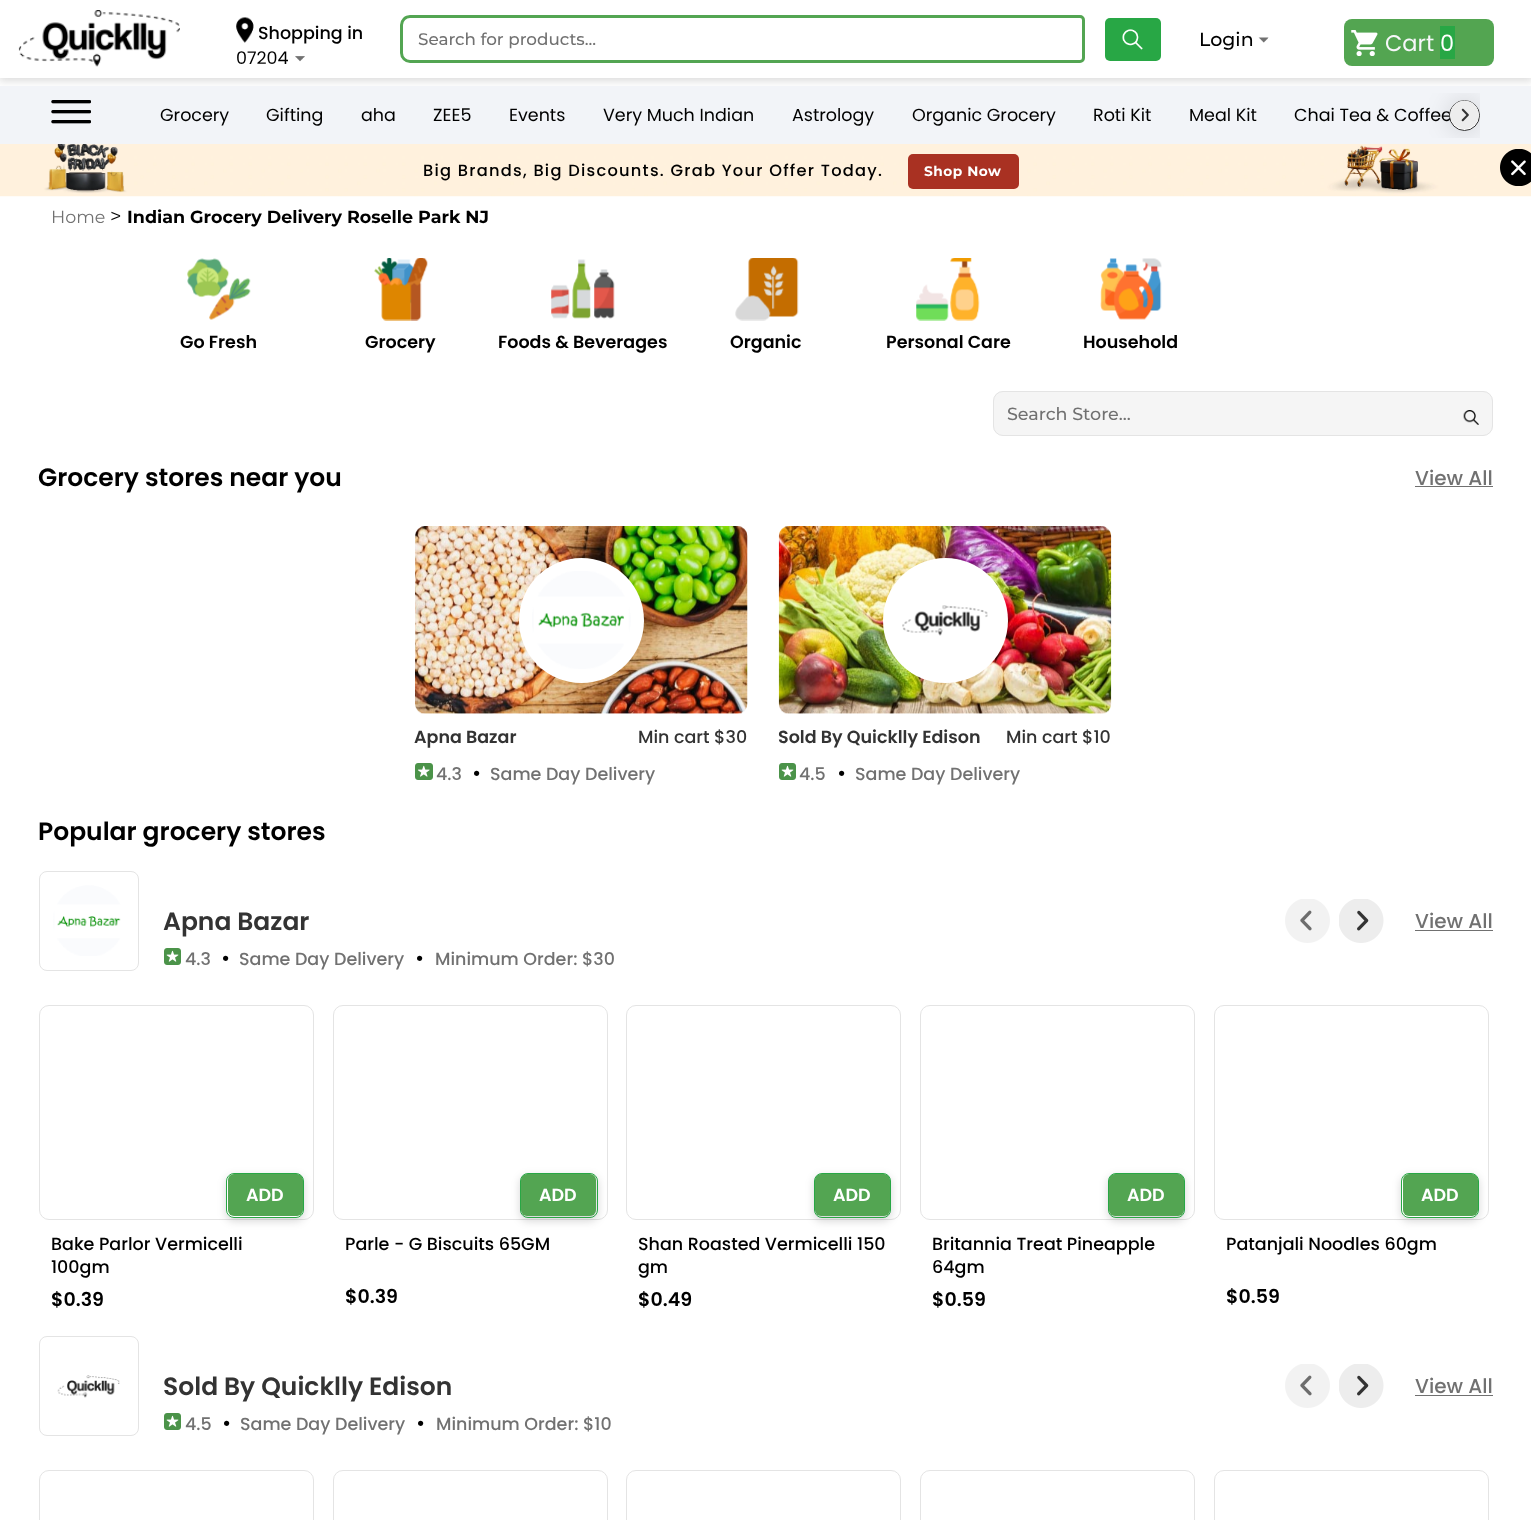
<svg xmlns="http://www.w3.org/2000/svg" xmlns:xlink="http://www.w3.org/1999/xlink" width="1531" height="1520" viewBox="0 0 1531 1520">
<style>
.cls-1{font:500 17.5px Poppins;fill:#000000}
.cls-2{font:17.5px Poppins;fill:#000000}
.cls-3{font:500 16.75px Montserrat;fill:#717171}
.cls-4{font:500 19px Montserrat;fill:#000000}
.cls-5{font:22.5px Poppins;fill:#f7f7fa}
.cls-6{font:22.5px Poppins;fill:#ffffff}
.cls-7{font:500 16.25px Poppins;letter-spacing:1.25px;fill:#000000}
.cls-8{font:bold 13.75px Montserrat;letter-spacing:0.5px;fill:#ffffff}
.cls-9{font:17.5px Montserrat;fill:#717171}
.cls-10{font:20px Montserrat;fill:#000000}
.cls-11{font:bold 17.5px Montserrat;fill:#000000}
.cls-12{font:600 17.5px Poppins;fill:#000000}
.cls-13{font:500 17.5px Montserrat;fill:#717171}
.cls-14{font:600 25px Poppins;fill:#000000}
.cls-15{font:500 20px Poppins;fill:#717171}
.cls-16{font:600 17.5px Poppins;fill:#333333}
.cls-17{font:500 17.5px Poppins;fill:#333333}
.cls-18{font:500 17.5px Poppins;fill:#717171}
.cls-19{font:500 20px Poppins;fill:#000000}
.cls-20{font:600 25px Poppins;fill:#333333}
.cls-21{font:600 17.5px Poppins;fill:#ffffff}
.cls-22{font:600 19px Poppins;fill:#000000}
</style>
<defs>
<clipPath id="clip1"><rect x="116" y="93" width="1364" height="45"/></clipPath>
<clipPath id="clip2"><path d="M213 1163H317V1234H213ZM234 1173H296C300.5 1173 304 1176.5 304 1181V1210C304 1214.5 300.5 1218 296 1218H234C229.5 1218 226 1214.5 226 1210V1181C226 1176.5 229.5 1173 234 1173Z" clip-rule="evenodd"/></clipPath>
<clipPath id="clip3"><path d="M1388 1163H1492V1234H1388ZM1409 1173H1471C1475.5 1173 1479 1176.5 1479 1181V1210C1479 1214.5 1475.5 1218 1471 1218H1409C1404.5 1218 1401 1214.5 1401 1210V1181C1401 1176.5 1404.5 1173 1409 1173Z" clip-rule="evenodd"/></clipPath>
</defs>
<rect width="100%" height="100%" fill="#ffffff"/>
<rect fill="#000000" fill-opacity="0.14" filter="blur(4px)" x="-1" y="1" width="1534" height="80"/>
<rect fill="#ffffff" x="0" y="0" width="1531" height="78"/>
<image xlink:href="image0.png" x="18" y="10" width="162" height="57"/>
<image xlink:href="image1.png" x="236" y="17" width="18" height="26"/>
<image xlink:href="image2.png" x="295" y="56" width="10" height="6"/>
<path fill="none" stroke="#53a552" stroke-width="3" d="M410 16.5H1080C1082 16.5 1083.5 18 1083.5 20V58C1083.5 60 1082 61.5 1080 61.5H410C405.5 61.5 401.5 57.5 401.5 53V25C401.5 20.5 405.5 16.5 410 16.5Z"/>
<rect fill="#28a745" x="1105" y="18" width="56" height="43" rx="5"/>
<image xlink:href="image3.png" x="1122" y="29" width="21" height="21"/>
<image xlink:href="image4.png" x="1258" y="37" width="11" height="6"/>
<rect fill="#53a551" x="1344" y="19" width="150" height="47" rx="8"/>
<image xlink:href="image5.png" x="1351" y="30" width="27" height="26"/>
<rect fill="#28a745" x="1440" y="26" width="15" height="33"/>
<rect fill="#f2f4f8" x="0" y="86" width="1531" height="58"/>
<image xlink:href="image6.png" x="51" y="100" width="40" height="24"/>
<image xlink:href="image8.png" x="0" y="144" width="1531" height="53"/>
<image xlink:href="image9.png" x="1500" y="149" width="31" height="37"/>
<g clip-path="url(#clip1)">
<rect fill="#000000" fill-opacity="0.13" filter="blur(12.5px)" x="1448" y="99" width="33" height="34" rx="16.5"/>
</g>
<rect fill="#a93122" x="908" y="154" width="111" height="35" rx="5"/>
<image xlink:href="image10.png" x="187" y="258" width="64" height="62"/>
<image xlink:href="image11.png" x="374" y="258" width="54" height="63"/>
<image xlink:href="image12.png" x="551" y="259" width="64" height="60"/>
<image xlink:href="image13.png" x="735" y="258" width="64" height="63"/>
<image xlink:href="image14.png" x="916" y="258" width="64" height="63"/>
<image xlink:href="image15.png" x="1100" y="258" width="62" height="62"/>
<rect fill="#f5f5f5" x="993" y="391" width="500" height="45" rx="10"/>
<image xlink:href="image16.png" x="1463" y="410" width="16" height="15"/>
<rect fill="none" stroke="#e4e4e4" x="993.5" y="391.5" width="499" height="44" rx="9.5"/>
<rect fill="#707070" x="1415" y="486" width="78" height="1"/>
<image xlink:href="image17.png" x="415" y="526" width="333" height="188"/>
<circle fill="#ffffff" cx="581.5" cy="620.5" r="62.5"/>
<image xlink:href="image18.png" x="532" y="571" width="99" height="98"/>
<image xlink:href="image19.png" x="415" y="763" width="18" height="17"/>
<image xlink:href="image20.png" x="778" y="526" width="334" height="188"/>
<circle fill="#ffffff" cx="945.5" cy="620.5" r="62.5"/>
<image xlink:href="image21.png" x="902" y="605" width="86" height="31"/>
<image xlink:href="image22.png" x="779" y="763" width="17" height="17"/>
<rect fill="none" stroke="#e4e4e4" x="39.5" y="871.5" width="99" height="99" rx="7.5"/>
<image xlink:href="image23.png" x="53" y="885" width="68" height="71"/>
<image xlink:href="image22.png" x="164" y="948" width="17" height="17"/>
<rect fill="#707070" x="1415" y="930" width="78" height="1"/>
<image xlink:href="image24.png" x="1285" y="899" width="45" height="44"/>
<image xlink:href="image25.png" x="1339" y="899" width="45" height="44"/>
<rect fill="none" stroke="#e4e4e4" x="39.5" y="1005.5" width="274" height="214" rx="9.5"/>
<g clip-path="url(#clip2)">
<rect fill="#000000" fill-opacity="0.16" filter="blur(4px)" x="226" y="1176" width="78" height="45" rx="8"/>
</g>
<rect fill="#53a552" x="228" y="1174" width="75" height="42" rx="6"/>
<rect fill="none" stroke="#28a745" x="226.5" y="1173.5" width="77" height="44" rx="7.5"/>
<rect fill="none" stroke="#e4e4e4" x="333.5" y="1005.5" width="274" height="214" rx="9.5"/>
<rect fill="#000000" fill-opacity="0.16" filter="blur(4px)" x="520" y="1176" width="78" height="45" rx="8"/>
<rect fill="#53a552" x="521" y="1174" width="75" height="42" rx="6"/>
<rect fill="none" stroke="#28a745" x="520.5" y="1173.5" width="77" height="44" rx="7.5"/>
<rect fill="none" stroke="#e4e4e4" x="626.5" y="1005.5" width="274" height="214" rx="9.5"/>
<rect fill="#000000" fill-opacity="0.16" filter="blur(4px)" x="814" y="1176" width="77" height="45" rx="8"/>
<rect fill="#53a552" x="815" y="1174" width="75" height="42" rx="6"/>
<rect fill="none" stroke="#28a745" x="814.5" y="1173.5" width="76" height="44" rx="7.5"/>
<rect fill="none" stroke="#e4e4e4" x="920.5" y="1005.5" width="274" height="214" rx="9.5"/>
<rect fill="#000000" fill-opacity="0.16" filter="blur(4px)" x="1108" y="1176" width="77" height="45" rx="8"/>
<rect fill="#53a552" x="1109" y="1174" width="75" height="42" rx="6"/>
<rect fill="none" stroke="#28a745" x="1108.5" y="1173.5" width="76" height="44" rx="7.5"/>
<rect fill="none" stroke="#e4e4e4" x="1214.5" y="1005.5" width="274" height="214" rx="9.5"/>
<g clip-path="url(#clip3)">
<rect fill="#000000" fill-opacity="0.16" filter="blur(4px)" x="1401" y="1176" width="78" height="45" rx="8"/>
</g>
<rect fill="#53a552" x="1403" y="1174" width="75" height="42" rx="6"/>
<rect fill="none" stroke="#28a745" x="1401.5" y="1173.5" width="77" height="44" rx="7.5"/>
<image xlink:href="image24.png" x="1285" y="1364" width="45" height="44"/>
<image xlink:href="image25.png" x="1339" y="1364" width="45" height="44"/>
<rect fill="none" stroke="#e4e4e4" x="39.5" y="1470.5" width="274" height="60" rx="9.5"/>
<rect fill="none" stroke="#e4e4e4" x="333.5" y="1470.5" width="274" height="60" rx="9.5"/>
<rect fill="none" stroke="#e4e4e4" x="626.5" y="1470.5" width="274" height="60" rx="9.5"/>
<rect fill="none" stroke="#e4e4e4" x="920.5" y="1470.5" width="274" height="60" rx="9.5"/>
<rect fill="none" stroke="#e4e4e4" x="1214.5" y="1470.5" width="274" height="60" rx="9.5"/>
<rect fill="none" stroke="#e4e4e4" x="39.5" y="1336.5" width="99" height="99" rx="7.5"/>
<image xlink:href="image26.png" x="57" y="1375" width="63" height="23"/>
<image xlink:href="image22.png" x="164" y="1413" width="17" height="17"/>
<rect fill="#707070" x="1415" y="1395" width="78" height="1"/>
<text class="cls-1" x="258" y="39">Shopping in</text>
<text class="cls-2" x="236" y="64">07204</text>
<text class="cls-3" x="418" y="45">Search for products...</text>
<text class="cls-4" x="1199" y="46">Login</text>
<text class="cls-5" x="1385" y="51">Cart</text>
<text class="cls-6" x="1440" y="51">0</text>
<text class="cls-2" x="160" y="121">Grocery</text>
<text class="cls-2" x="266" y="121">Gifting</text>
<text class="cls-2" x="361" y="121">aha</text>
<text class="cls-2" x="433" y="121">ZEE5</text>
<text class="cls-2" x="509" y="121">Events</text>
<text class="cls-2" x="603" y="121">Very Much Indian</text>
<text class="cls-2" x="792" y="121">Astrology</text>
<text class="cls-2" x="912" y="121">Organic Grocery</text>
<text class="cls-2" x="1093" y="121">Roti Kit</text>
<text class="cls-2" x="1189" y="121">Meal Kit</text>
<text class="cls-2" x="1294" y="121">Chai Tea &amp; Coffee</text>
<circle fill="#ffffff" stroke="#333333" cx="1464.5" cy="115.5" r="15"/>
<image xlink:href="image7.png" x="1450" y="100" width="29" height="29"/>
<text class="cls-7" x="423" y="176">Big Brands, Big Discounts. Grab Your Offer Today.</text>
<text class="cls-8" x="924" y="176">Shop Now</text>
<text class="cls-9" x="51" y="223">Home</text>
<text class="cls-10" x="110" y="223">&gt;</text>
<text class="cls-11" x="127" y="223">Indian Grocery Delivery Roselle Park NJ</text>
<text class="cls-12" x="180" y="348">Go Fresh</text>
<text class="cls-12" x="365" y="348">Grocery</text>
<text class="cls-12" x="498" y="348">Foods &amp; Beverages</text>
<text class="cls-12" x="730" y="348">Organic</text>
<text class="cls-12" x="886" y="348">Personal Care</text>
<text class="cls-12" x="1083" y="348">Household</text>
<text class="cls-13" x="1007" y="420">Search Store...</text>
<text class="cls-14" x="38" y="486">Grocery stores near you</text>
<text class="cls-15" x="1415" y="485">View All</text>
<text class="cls-16" x="414" y="743">Apna Bazar</text>
<text class="cls-17" x="638" y="743">Min cart $30</text>
<text class="cls-18" x="436" y="780">4.3</text>
<text class="cls-19" x="472" y="780">•</text>
<text class="cls-18" x="490" y="780">Same Day Delivery</text>
<text class="cls-16" x="778" y="743">Sold By Quicklly Edison</text>
<text class="cls-17" x="1006" y="743">Min cart $10</text>
<text class="cls-18" x="799" y="780">4.5</text>
<text class="cls-19" x="837" y="780">•</text>
<text class="cls-18" x="855" y="780">Same Day Delivery</text>
<text class="cls-14" x="38" y="840">Popular grocery stores</text>
<text class="cls-20" x="163" y="930">Apna Bazar</text>
<text class="cls-18" x="185" y="965">4.3</text>
<text class="cls-19" x="221" y="965">•</text>
<text class="cls-18" x="239" y="965">Same Day Delivery</text>
<text class="cls-19" x="415" y="965">•</text>
<text class="cls-18" x="435" y="965">Minimum Order: $30</text>
<text class="cls-15" x="1415" y="928">View All</text>
<text class="cls-21" x="246" y="1201">ADD</text>
<text class="cls-1"><tspan x="51" y="1250">Bake Parlor Vermicelli</tspan><tspan x="51" y="1273">100gm</tspan></text>
<text class="cls-22" x="51" y="1306">$0.39</text>
<text class="cls-21" x="539" y="1201">ADD</text>
<text class="cls-1" x="345" y="1250">Parle - G Biscuits 65GM</text>
<text class="cls-22" x="345" y="1303">$0.39</text>
<text class="cls-21" x="833" y="1201">ADD</text>
<text class="cls-1"><tspan x="638" y="1250">Shan Roasted Vermicelli 150</tspan><tspan x="638" y="1273">gm</tspan></text>
<text class="cls-22" x="638" y="1306">$0.49</text>
<text class="cls-21" x="1127" y="1201">ADD</text>
<text class="cls-1"><tspan x="932" y="1250">Britannia Treat Pineapple</tspan><tspan x="932" y="1273">64gm</tspan></text>
<text class="cls-22" x="932" y="1306">$0.59</text>
<text class="cls-21" x="1421" y="1201">ADD</text>
<text class="cls-1" x="1226" y="1250">Patanjali Noodles 60gm</text>
<text class="cls-22" x="1226" y="1303">$0.59</text>
<text class="cls-20" x="163" y="1395">Sold By Quicklly Edison</text>
<text class="cls-18" x="185" y="1430">4.5</text>
<text class="cls-19" x="222" y="1430">•</text>
<text class="cls-18" x="240" y="1430">Same Day Delivery</text>
<text class="cls-19" x="416" y="1430">•</text>
<text class="cls-18" x="436" y="1430">Minimum Order: $10</text>
<text class="cls-15" x="1415" y="1393">View All</text>
</svg>
